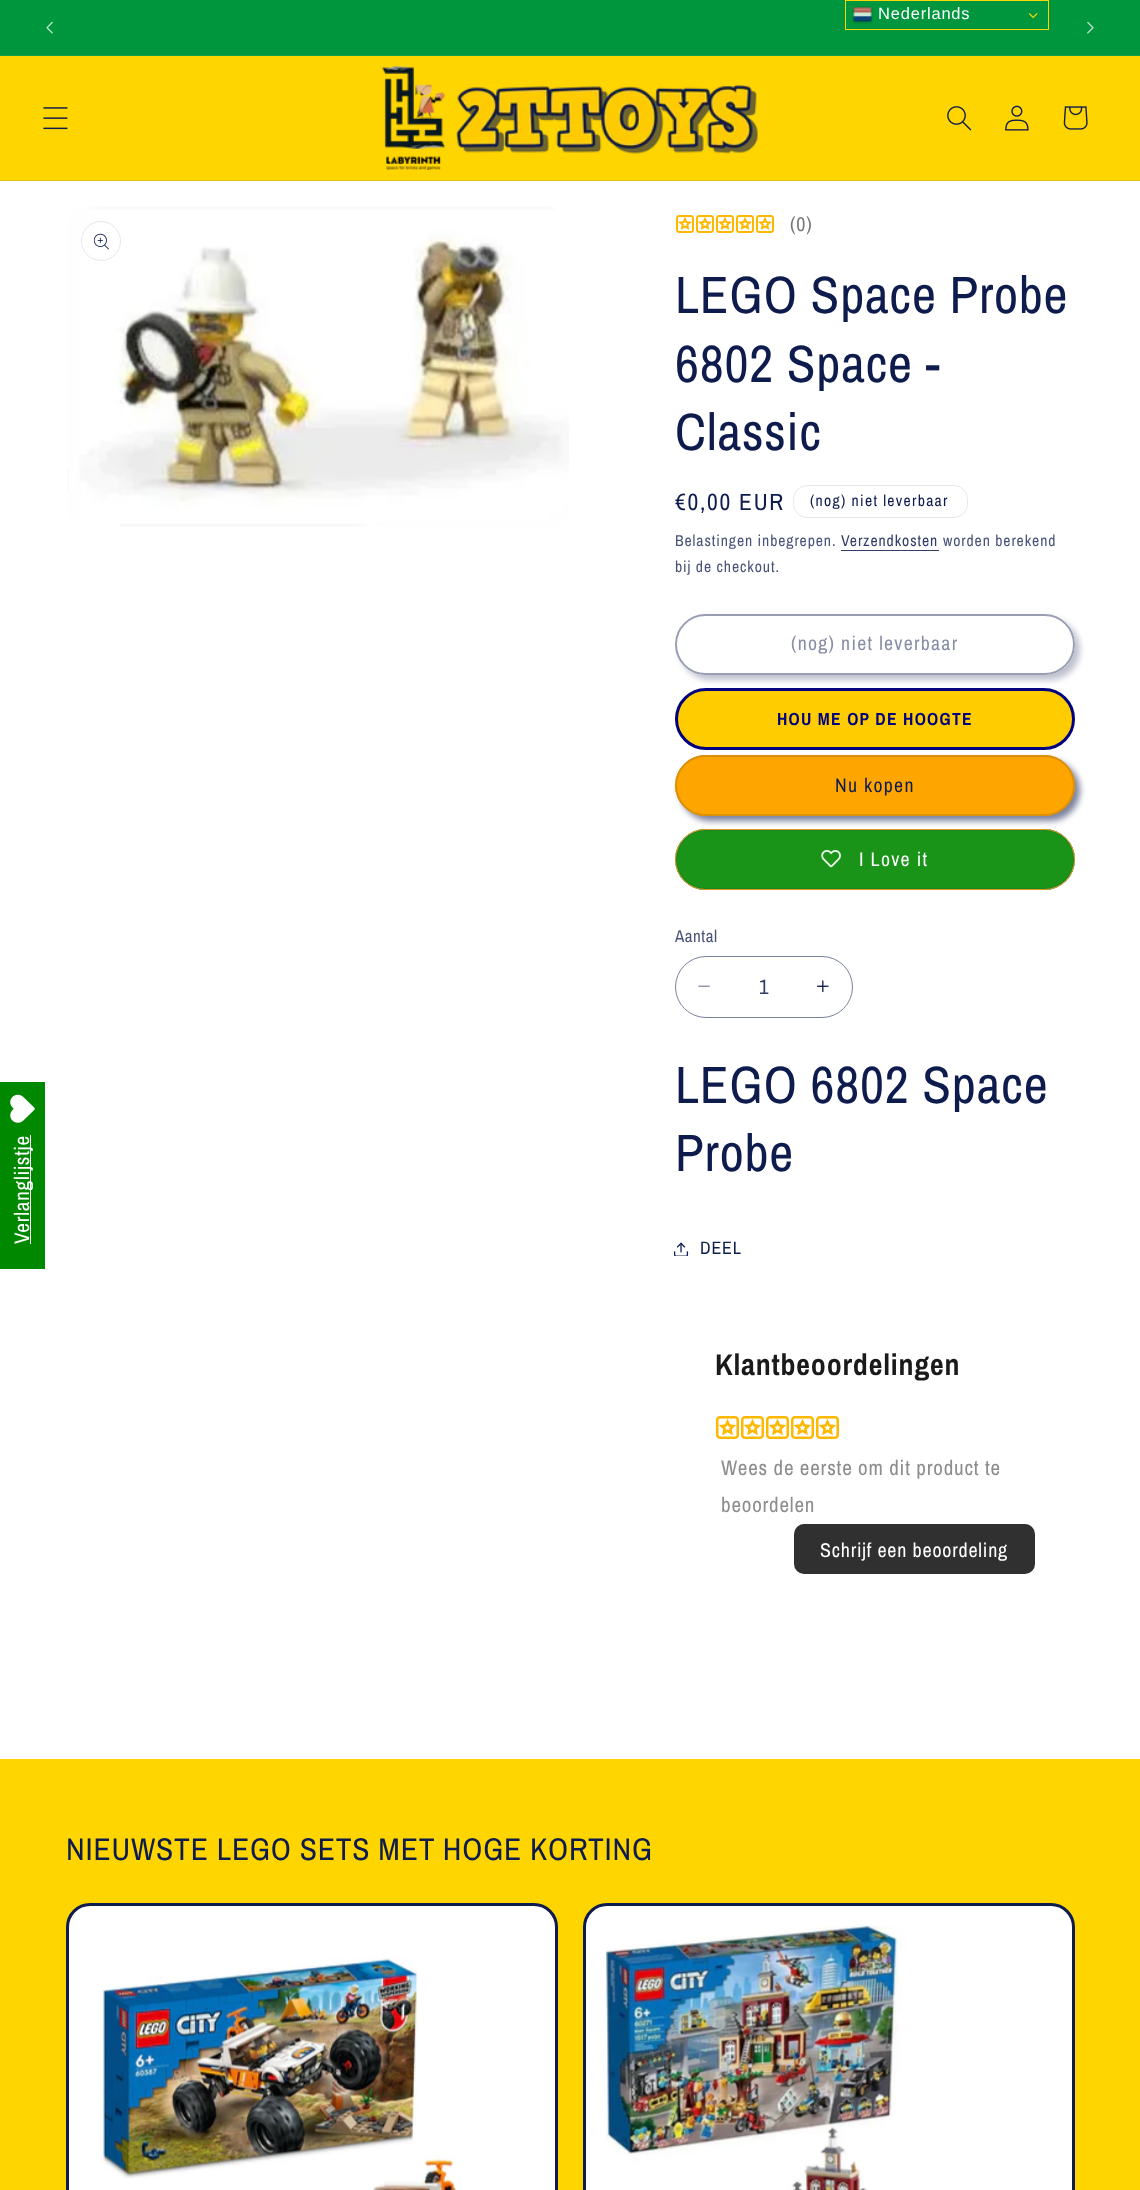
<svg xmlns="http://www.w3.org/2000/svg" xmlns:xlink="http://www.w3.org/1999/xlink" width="1140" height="2190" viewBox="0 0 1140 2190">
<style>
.cls-1{font:16.5px Liberation Sans;letter-spacing:0.8px;fill:#ffffff}
.cls-2{font:21px Archivo Narrow;letter-spacing:0.8px;fill:#ffffff}
.cls-3{font:20px Archivo Narrow;letter-spacing:0.8px;fill:#767676}
.cls-4{font:52.5px Archivo Narrow;letter-spacing:0.8px;fill:#0e1b4d}
.cls-5{font:23.5px Archivo Narrow;letter-spacing:1.75px;fill:#0e1b4d}
.cls-6{font:15.75px Archivo Narrow;letter-spacing:1.3px;fill:#0e1b4d}
.cls-7{font:15.75px Archivo Narrow;letter-spacing:0.9px;fill:#4a547a}
.cls-8{font:15.75px Archivo Narrow;letter-spacing:0.9px;fill:#323d68}
.cls-9{font:19.75px Archivo Narrow;letter-spacing:1.3px;fill:#878da6}
.cls-10{font:bold 17.5px Archivo Narrow;letter-spacing:1.25px;fill:#00007f}
.cls-11{font:19.75px Archivo Narrow;letter-spacing:1.3px;fill:#0e1b4d}
.cls-12{font:19.75px Archivo Narrow;letter-spacing:1.3px;fill:#ffffff}
.cls-13{font:17px Archivo Narrow;letter-spacing:0.5px;fill:#4a547a}
.cls-14{font:21px Archivo Narrow;fill:#323d68}
.cls-15{font:18px Archivo Narrow;letter-spacing:0.8px;fill:#0e1b4d}
.cls-16{font:bold 30px Archivo Narrow;letter-spacing:0.8px;fill:#1a1a1a}
.cls-17{font:21px Archivo Narrow;letter-spacing:0.8px;fill:#8d8d8d}
.cls-18{font:20px Archivo Narrow;letter-spacing:0.8px;fill:#ffffff}
.cls-19{font:31.5px Archivo Narrow;letter-spacing:0.8px;fill:#0e1b4d}
</style>
<defs>
<clipPath id="clip1"><path d="M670 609H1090V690H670ZM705.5 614H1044.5C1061.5 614 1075 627.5 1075 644.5C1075 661.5 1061.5 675 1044.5 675H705.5C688.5 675 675 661.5 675 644.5C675 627.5 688.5 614 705.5 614Z" clip-rule="evenodd"/></clipPath>
<clipPath id="clip2"><rect x="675" y="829" width="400" height="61" rx="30.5"/></clipPath>
<clipPath id="clip3"><path d="M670 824H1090V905H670ZM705.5 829H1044.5C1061.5 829 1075 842.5 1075 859.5C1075 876.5 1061.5 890 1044.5 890H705.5C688.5 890 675 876.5 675 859.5C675 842.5 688.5 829 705.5 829Z" clip-rule="evenodd"/></clipPath>
</defs>
<rect width="100%" height="100%" fill="#ffffff"/>
<rect fill="#00963e" x="0" y="0" width="1140" height="55"/>
<rect fill="#149e4d" x="0" y="55" width="1140" height="1"/>
<image xlink:href="image0.png" x="46" y="21" width="7" height="13"/>
<image xlink:href="image1.png" x="1087" y="21" width="7" height="13"/>
<rect fill="none" stroke="#ffd500" x="845.5" y="0.5" width="203" height="29"/>
<image xlink:href="image2.png" x="852" y="6" width="21" height="18"/>
<image xlink:href="image3.png" x="1029" y="13" width="9" height="6"/>
<rect fill="#ffd500" x="0" y="56" width="1140" height="124"/>
<rect fill="#ecc606" x="0" y="180" width="1140" height="1"/>
<image xlink:href="image4.png" x="43" y="107" width="25" height="23"/>
<image xlink:href="image5.png" x="382" y="66" width="376" height="104"/>
<image xlink:href="image6.png" x="947" y="106" width="25" height="25"/>
<image xlink:href="image7.png" x="1005" y="105" width="24" height="26"/>
<image xlink:href="image8.png" x="1063" y="106" width="25" height="24"/>
<rect fill="#008800" x="0" y="1082" width="45" height="187"/>
<image xlink:href="image9.png" x="10" y="1094" width="25" height="29"/>
<rect fill="#ffffff" x="30" y="1135" width="1" height="109"/>
<image xlink:href="image10.png" x="67" y="206" width="502" height="321"/>
<circle fill="none" stroke="#e7e8ed" cx="101" cy="241" r="19.5"/>
<image xlink:href="image11.png" x="94" y="233" width="15" height="17"/>
<image xlink:href="image12.png" x="676" y="215" width="18" height="18"/>
<image xlink:href="image12.png" x="696" y="215" width="18" height="18"/>
<image xlink:href="image12.png" x="716" y="215" width="18" height="18"/>
<image xlink:href="image12.png" x="736" y="215" width="18" height="18"/>
<image xlink:href="image12.png" x="756" y="215" width="18" height="18"/>
<rect fill="none" stroke="#e7e8ed" x="793.5" y="485.5" width="174" height="32" rx="13.5"/>
<rect fill="#323d68" x="841" y="550" width="98" height="1"/>
<g clip-path="url(#clip1)">
<rect fill="#878da6" fill-opacity="0.55" filter="blur(3px)" x="680" y="619" width="400" height="61" rx="30.5"/>
</g>
<rect fill="none" stroke="#ffffff" x="675.5" y="614.5" width="399" height="60" rx="30"/>
<rect fill="none" stroke="#878da6" stroke-opacity="0.85" stroke-width="2" x="676" y="615" width="398" height="59" rx="29.5"/>
<rect fill="#ffcc00" stroke="#00007f" stroke-width="3" x="676.5" y="689.5" width="397" height="59" rx="29.5"/>
<rect fill="#0e1b4d" fill-opacity="0.55" filter="blur(3px)" x="680" y="760" width="400" height="61" rx="30.5"/>
<rect fill="#ffa500" x="675" y="755" width="400" height="61" rx="30.5"/>
<rect fill="none" stroke="#ffa500" x="675.5" y="755.5" width="399" height="60" rx="30"/>
<rect fill="none" stroke="#0e1b4d" stroke-opacity="0.15" stroke-width="2" x="676" y="756" width="398" height="59" rx="29.5"/>
<rect fill="#199419" x="675" y="829" width="400" height="61" rx="30.5"/>
<g clip-path="url(#clip2)">
<g clip-path="url(#clip3)">
<rect fill="#26325f" fill-opacity="0.55" filter="blur(3px)" x="680" y="834" width="400" height="61" rx="30.5"/>
</g>
</g>
<image xlink:href="image13.png" x="821" y="850" width="20" height="18"/>
<rect fill="none" stroke="#ffae19" x="675.5" y="829.5" width="399" height="60" rx="30"/>
<rect fill="none" stroke="#26325f" stroke-opacity="0.15" stroke-width="2" x="676" y="830" width="398" height="59" rx="29.5"/>
<image xlink:href="image14.png" x="698" y="985" width="12" height="2"/>
<image xlink:href="image15.png" x="817" y="980" width="12" height="13"/>
<rect fill="none" stroke="#7a829d" x="675.5" y="956.5" width="177" height="61" rx="30.5"/>
<image xlink:href="image16.png" x="674" y="1242" width="15" height="14"/>
<image xlink:href="image17.png" x="716" y="1416" width="23" height="23"/>
<image xlink:href="image17.png" x="741" y="1416" width="23" height="23"/>
<image xlink:href="image17.png" x="766" y="1416" width="23" height="23"/>
<image xlink:href="image17.png" x="791" y="1416" width="23" height="23"/>
<image xlink:href="image17.png" x="816" y="1416" width="23" height="23"/>
<rect fill="#303030" x="794" y="1524" width="241" height="50" rx="10"/>
<rect fill="#ffd500" x="0" y="1759" width="1140" height="431"/>
<rect fill="#ffffff" stroke="#0e1b4d" stroke-width="3" x="67.5" y="1904.5" width="489" height="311" rx="22.5"/>
<image xlink:href="image18.png" x="101" y="1956" width="356" height="234"/>
<rect fill="#ffffff" stroke="#0e1b4d" stroke-width="3" x="584.5" y="1904.5" width="489" height="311" rx="22.5"/>
<image xlink:href="image19.png" x="606" y="1926" width="297" height="264"/>
<text class="cls-1" x="878" y="19">Nederlands</text>
<text class="cls-2" x="29" y="1244" transform="rotate(-90 29 1244)">Verlanglijstje</text>
<text class="cls-3" x="790" y="231">(0)</text>
<text class="cls-4"><tspan x="675" y="313">LEGO Space Probe</tspan><tspan x="675" y="382">6802 Space -</tspan><tspan x="675" y="450">Classic</tspan></text>
<text class="cls-5" x="675" y="510">€0,00 EUR</text>
<text class="cls-6" x="810" y="506">(nog) niet leverbaar</text>
<text class="cls-7" x="675" y="546">Belastingen inbegrepen.</text>
<text class="cls-8" x="841" y="546">Verzendkosten</text>
<text class="cls-7" x="943" y="546">worden berekend</text>
<text class="cls-7" x="675" y="572">bij de checkout.</text>
<text class="cls-9" x="791" y="650">(nog) niet leverbaar</text>
<text class="cls-10" x="777" y="725">HOU ME OP DE HOOGTE</text>
<text class="cls-11" x="835" y="792">Nu kopen</text>
<text class="cls-12" x="859" y="866">I Love it</text>
<text class="cls-13" x="675" y="942">Aantal</text>
<text class="cls-14" x="759" y="994">1</text>
<text class="cls-4"><tspan x="675" y="1103">LEGO 6802 Space</tspan><tspan x="675" y="1171">Probe</tspan></text>
<text class="cls-15" x="700" y="1254">DEEL</text>
<text class="cls-16" x="715" y="1375">Klantbeoordelingen</text>
<text class="cls-17"><tspan x="721" y="1475">Wees de eerste om dit product te</tspan><tspan x="721" y="1512">beoordelen</tspan></text>
<text class="cls-18" x="820" y="1557">Schrijf een beoordeling</text>
<text class="cls-19" x="66" y="1860">NIEUWSTE LEGO SETS MET HOGE KORTING</text>
</svg>
